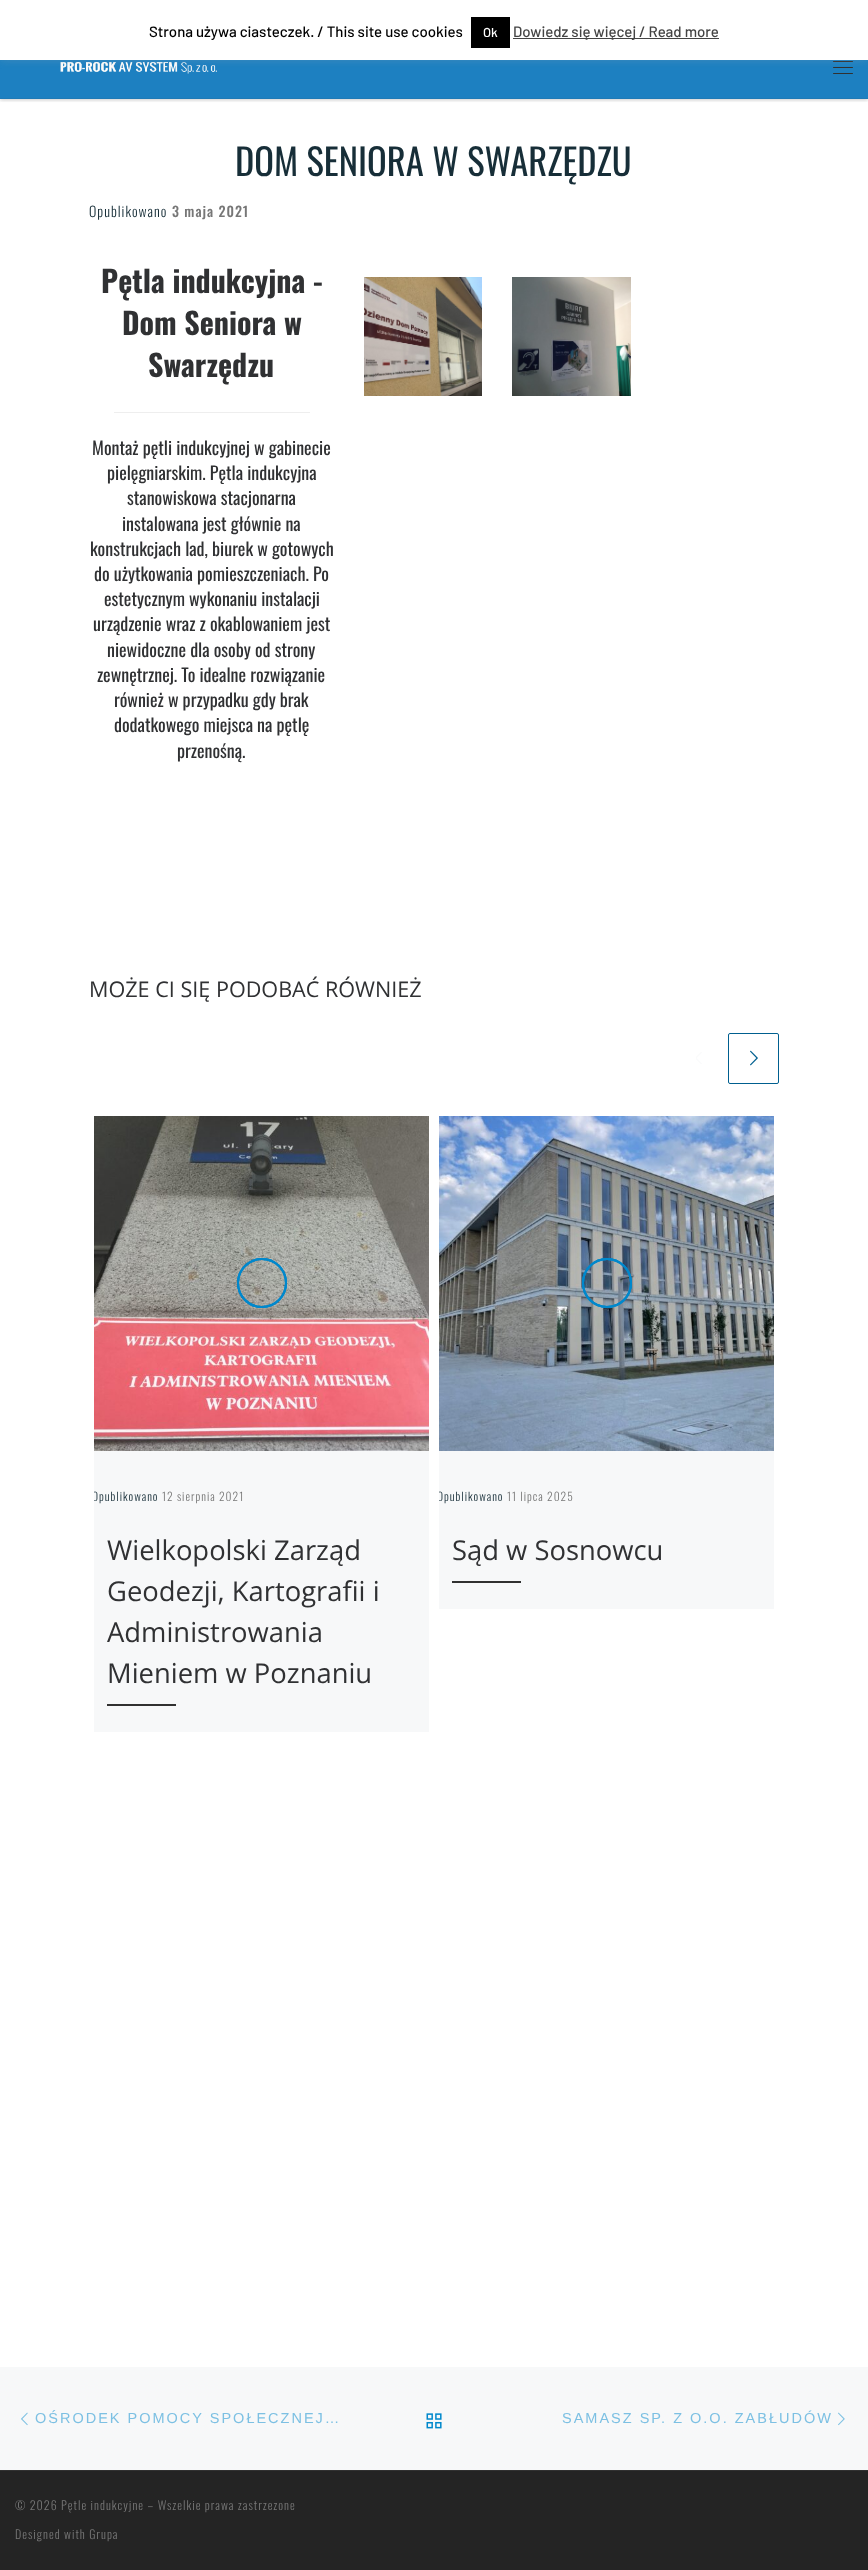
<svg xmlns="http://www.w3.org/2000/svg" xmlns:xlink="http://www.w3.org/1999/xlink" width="868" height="2570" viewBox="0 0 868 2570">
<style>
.cls-1{font:500 15px Barlow;fill:#000000}
.cls-2{font:500 13px Barlow;fill:#ffffff}
.cls-3{font:500 15px Barlow;fill:#444444}
.cls-4{font:36.6px Oswald;fill:#172e38}
.cls-5{font:300 14px Oswald;letter-spacing:1px;fill:#172e38}
.cls-6{font:500 14px Oswald;letter-spacing:1px;fill:#777777}
.cls-7{font:bold 30px Oswald;fill:#303133}
.cls-8{font:18px Oswald;fill:#303133}
.cls-9{font:21.6px Open Sans;fill:#303133}
.cls-10{font:300 11.5px Oswald;letter-spacing:1px;fill:#172e38}
.cls-11{font:300 11.5px Oswald;letter-spacing:1px;fill:#777777}
.cls-12{font:27.4px Open Sans;fill:#303133}
.cls-13{font:14.5px Liberation Sans;letter-spacing:2px;fill:#7cc0e3}
.cls-14{font:300 12px Oswald;letter-spacing:1px;fill:#777777}
</style>
<defs>
<clipPath id="clip1"><rect x="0" y="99" width="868" height="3"/></clipPath>
<clipPath id="clip2"><rect x="94" y="1451" width="335" height="281"/></clipPath>
<clipPath id="clip3"><rect x="439" y="1451" width="335" height="158"/></clipPath>
</defs>
<rect width="100%" height="100%" fill="#ffffff"/>
<rect fill="#666666" fill-opacity="0.08" filter="blur(1px)" x="0" y="2" width="868" height="99"/>
<rect fill="#1d80c1" x="0" y="60" width="868" height="38"/>
<g clip-path="url(#clip1)">
<rect fill="#000000" fill-opacity="0.2" filter="blur(2.5px)" x="0" y="35" width="868" height="64"/>
</g>
<image xlink:href="image0.png" x="60" y="62" width="157" height="12"/>
<rect fill="#313131" x="833" y="61" width="20" height="1" rx="0.5"/>
<rect fill="#313131" x="833" y="67" width="20" height="1" rx="0.5"/>
<rect fill="#313131" x="833" y="73" width="20" height="1" rx="0.5"/>
<rect fill="#acabab" fill-opacity="0.3" filter="blur(5px)" x="0" y="-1" width="868" height="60"/>
<rect fill="#ffffff" x="0" y="0" width="868" height="60"/>
<rect fill="#000000" x="471" y="17" width="39" height="31"/>
<rect fill="#444444" x="513" y="38" width="206" height="1"/>
<rect fill="#1f7ab6" x="0" y="98" width="868" height="1"/>
<rect fill="#eeeeee" x="114" y="412" width="196" height="1"/>
<image xlink:href="image1.png" x="364" y="277" width="118" height="119"/>
<image xlink:href="image2.png" x="512" y="277" width="119" height="119"/>
<image xlink:href="image3.png" x="696" y="1052" width="6" height="12"/>
<rect fill="none" stroke="#005f8f" x="728.5" y="1033.5" width="50" height="50" rx="1.5"/>
<image xlink:href="image4.png" x="750" y="1050" width="8" height="16"/>
<rect fill="#f7f8f9" x="94" y="1451" width="335" height="281"/>
<image xlink:href="image5.png" x="94" y="1116" width="335" height="335"/>
<circle fill="none" stroke="#0088cc" stroke-opacity="0.98" stroke-width="2" cx="262" cy="1283" r="24"/>
<circle fill="none" stroke="#0088cc" stroke-opacity="0.98" stroke-width="2" cx="262" cy="1283" r="24"/>
<circle fill="none" stroke="#0088cc" stroke-opacity="0.98" stroke-width="2" cx="262" cy="1283" r="24"/>
<rect fill="#313131" x="107" y="1704" width="69" height="2"/>
<rect fill="#f7f8f9" x="439" y="1451" width="335" height="158"/>
<image xlink:href="image6.png" x="439" y="1116" width="335" height="335"/>
<circle fill="none" stroke="#0088cc" stroke-opacity="0.98" stroke-width="2" cx="607" cy="1283" r="24"/>
<circle fill="none" stroke="#0088cc" stroke-opacity="0.98" stroke-width="2" cx="607" cy="1283" r="24"/>
<circle fill="none" stroke="#0088cc" stroke-opacity="0.98" stroke-width="2" cx="607" cy="1283" r="24"/>
<rect fill="#313131" x="452" y="1581" width="69" height="2"/>
<rect fill="#f7f8f9" x="0" y="2367" width="868" height="103"/>
<image xlink:href="image7.png" x="21" y="2412" width="7" height="14"/>
<image xlink:href="image8.png" x="426" y="2413" width="16" height="16"/>
<image xlink:href="image9.png" x="838" y="2412" width="7" height="14"/>
<rect fill="#313131" x="0" y="2470" width="868" height="1"/>
<rect fill="#242424" x="0" y="2471" width="868" height="99"/>
<text class="cls-1" x="149" y="37">Strona używa ciasteczek. / This site use cookies</text>
<text class="cls-2" x="483" y="37">Ok</text>
<text class="cls-3" x="513" y="37">Dowiedz się więcej / Read more</text>
<text class="cls-4" x="235" y="176">DOM SENIORA W SWARZĘDZU</text>
<text class="cls-5" x="89" y="217">Opublikowano</text>
<text class="cls-6" x="172" y="217">3 maja 2021</text>
<text class="cls-7" x="101" y="293">Pętla indukcyjna -</text>
<text class="cls-7" x="122" y="335">Dom Seniora w</text>
<text class="cls-7" x="148" y="377">Swarzędzu</text>
<text class="cls-8" x="92" y="455">Montaż pętli indukcyjnej w gabinecie</text>
<text class="cls-8" x="107" y="480">pielęgniarskim. Pętla indukcyjna</text>
<text class="cls-8" x="127" y="505">stanowiskowa stacjonarna</text>
<text class="cls-8" x="122" y="531">instalowana jest głównie na</text>
<text class="cls-8" x="90" y="556">konstrukcjach lad, biurek w gotowych</text>
<text class="cls-8" x="94" y="581">do użytkowania pomieszczeniach. Po</text>
<text class="cls-8" x="104" y="606">estetycznym wykonaniu instalacji</text>
<text class="cls-8" x="93" y="631">urządzenie wraz z okablowaniem jest</text>
<text class="cls-8" x="107" y="657">niewidoczne dla osoby od strony</text>
<text class="cls-8" x="97" y="682">zewnętrznej. To idealne rozwiązanie</text>
<text class="cls-8"><tspan x="114" y="707">również w przypadku gdy brak</tspan><tspan x="114" y="732">dodatkowego miejsca na pętlę</tspan></text>
<text class="cls-8" x="177" y="758">przenośną.</text>
<text class="cls-9" x="89" y="997">MOŻE CI SIĘ PODOBAĆ RÓWNIEŻ</text>
<g clip-path="url(#clip2)">
<text class="cls-10" x="92" y="1501">Opublikowano</text>
</g>
<text class="cls-11" x="162" y="1501">12 sierpnia 2021</text>
<text class="cls-12"><tspan x="107" y="1560">Wielkopolski Zarząd</tspan><tspan x="107" y="1601">Geodezji, Kartografii i</tspan><tspan x="107" y="1642">Administrowania</tspan><tspan x="107" y="1683">Mieniem w Poznaniu</tspan></text>
<g clip-path="url(#clip3)">
<text class="cls-10" x="437" y="1501">Opublikowano</text>
</g>
<text class="cls-11" x="507" y="1501">11 lipca 2025</text>
<text class="cls-12" x="452" y="1560">Sąd w Sosnowcu</text>
<text class="cls-13" x="35" y="2423">OŚRODEK POMOCY SPOŁECZNEJ…</text>
<text class="cls-13" x="562" y="2423">SAMASZ SP. Z O.O. ZABŁUDÓW</text>
<text class="cls-14" x="15" y="2510">© 2026 Pętle indukcyjne – Wszelkie prawa zastrzezone</text>
<text class="cls-14" x="15" y="2539">Designed with Grupa</text>
</svg>
